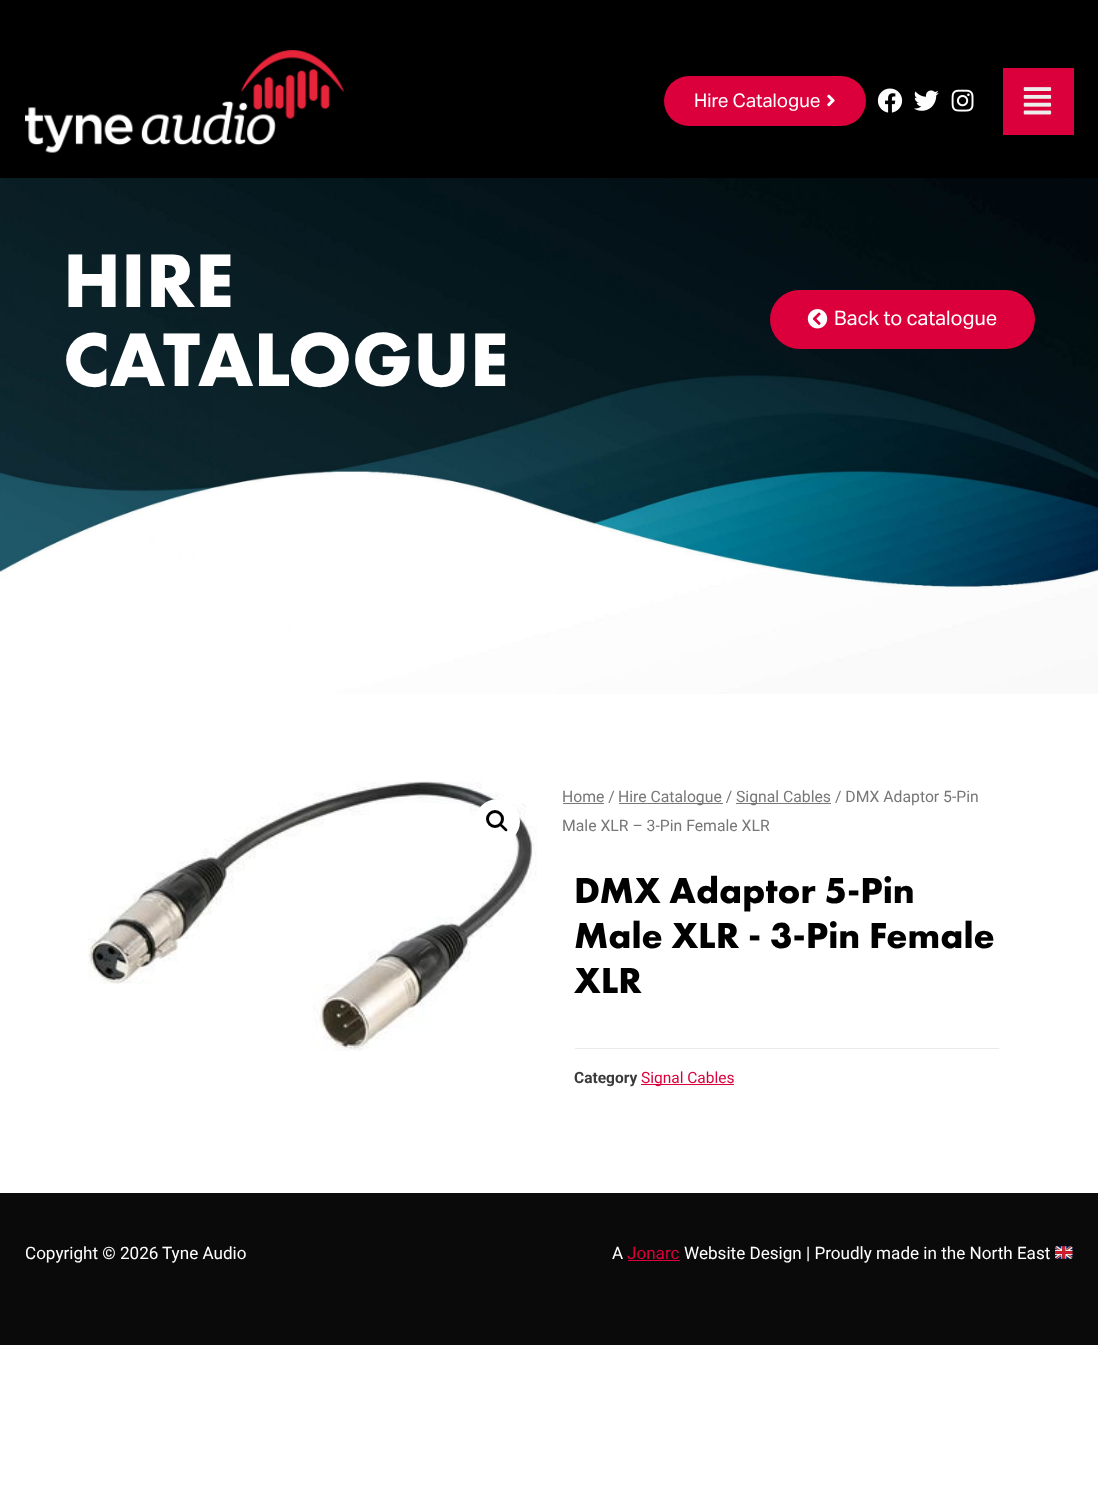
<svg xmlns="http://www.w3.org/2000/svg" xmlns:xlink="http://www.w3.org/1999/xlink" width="1098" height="1489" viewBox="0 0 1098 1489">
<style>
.cls-1{font:18.75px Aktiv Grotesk;fill:#ffffff}
.cls-2{font:bold 78.75px Futura PT;fill:#ffffff}
.cls-3{font:20px Aktiv Grotesk;fill:#ffffff}
.cls-4{font:15.75px Roboto;fill:#777777}
.cls-5{font:bold 37.5px Futura PT;fill:#000000}
.cls-6{font:bold 15.5px Roboto;fill:#3a3a3a}
.cls-7{font:15.5px Roboto;fill:#db003b}
.cls-8{font:17.1px Roboto;fill:#ffffff}
.cls-9{font:17.1px Roboto;fill:#db003b}
</style>
<rect width="100%" height="100%" fill="#ffffff"/>
<rect fill="#000000" x="0" y="0" width="1098" height="178"/>
<image xlink:href="image0.png" x="25" y="50" width="319" height="103"/>
<rect fill="#db003b" x="664" y="76" width="202" height="50" rx="25"/>
<image xlink:href="image1.png" x="827" y="94" width="8" height="13"/>
<image xlink:href="image2.png" x="877" y="88" width="26" height="25"/>
<image xlink:href="image3.png" x="913" y="90" width="26" height="21"/>
<image xlink:href="image4.png" x="951" y="89" width="23" height="23"/>
<rect fill="#db003b" x="1003" y="68" width="71" height="67"/>
<image xlink:href="image5.png" x="1023" y="87" width="29" height="28"/>
<image xlink:href="image6.png" x="0" y="178" width="1098" height="516"/>
<rect fill="#db003b" x="770" y="290" width="265" height="59" rx="29.5"/>
<image xlink:href="image7.png" x="807" y="309" width="21" height="20"/>
<image xlink:href="image8.png" x="88" y="781" width="449" height="270"/>
<circle fill="#ffffff" cx="497.5" cy="821.5" r="22.5"/>
<circle fill="none" stroke="#000000" stroke-width="3" cx="495" cy="819" r="7.5"/>
<path fill="#000000" d="M500 824C501.5 822.5 503.5 826 504.5 826.5C505 827.5 508.5 829.5 507 831C505.5 832.5 503.5 829 502.5 828.5C502 827.5 498.5 825.5 500 824Z"/>
<rect fill="#777777" x="563" y="803" width="41" height="1"/>
<rect fill="#777777" x="619" y="803" width="104" height="1"/>
<rect fill="#777777" x="736" y="803" width="95" height="1"/>
<rect fill="#ebebeb" x="575" y="1048" width="424" height="1"/>
<rect fill="#db003b" x="641" y="1084" width="93" height="1"/>
<rect fill="#0a0a0a" x="0" y="1193" width="1098" height="152"/>
<rect fill="#db003b" x="628" y="1260" width="52" height="1"/>
<image xlink:href="image9.png" x="1055" y="1246" width="18" height="13"/>
<text class="cls-1" x="694" y="107">Hire Catalogue</text>
<text class="cls-2"><tspan x="63" y="307">HIRE</tspan><tspan x="63" y="386">CATALOGUE</tspan></text>
<text class="cls-3" x="834" y="325">Back to catalogue</text>
<text class="cls-4" x="562" y="802">Home /</text>
<text class="cls-4" x="618" y="802">Hire Catalogue /</text>
<text class="cls-4" x="736" y="802">Signal Cables / DMX Adaptor 5-Pin</text>
<text class="cls-4" x="562" y="831">Male XLR – 3-Pin Female XLR</text>
<text class="cls-5"><tspan x="574" y="903">DMX Adaptor 5-Pin</tspan><tspan x="574" y="948">Male XLR - 3-Pin Female</tspan><tspan x="574" y="993">XLR</tspan></text>
<text class="cls-6" x="574" y="1083">Category</text>
<text class="cls-7" x="641" y="1083">Signal Cables</text>
<text class="cls-8" x="25" y="1259">Copyright © 2026</text>
<text class="cls-8" x="162" y="1259">Tyne Audio</text>
<text class="cls-8" x="612" y="1259">A</text>
<text class="cls-9" x="627" y="1259">Jonarc</text>
<text class="cls-8" x="684" y="1259">Website Design | Proudly made in the North East</text>
</svg>
